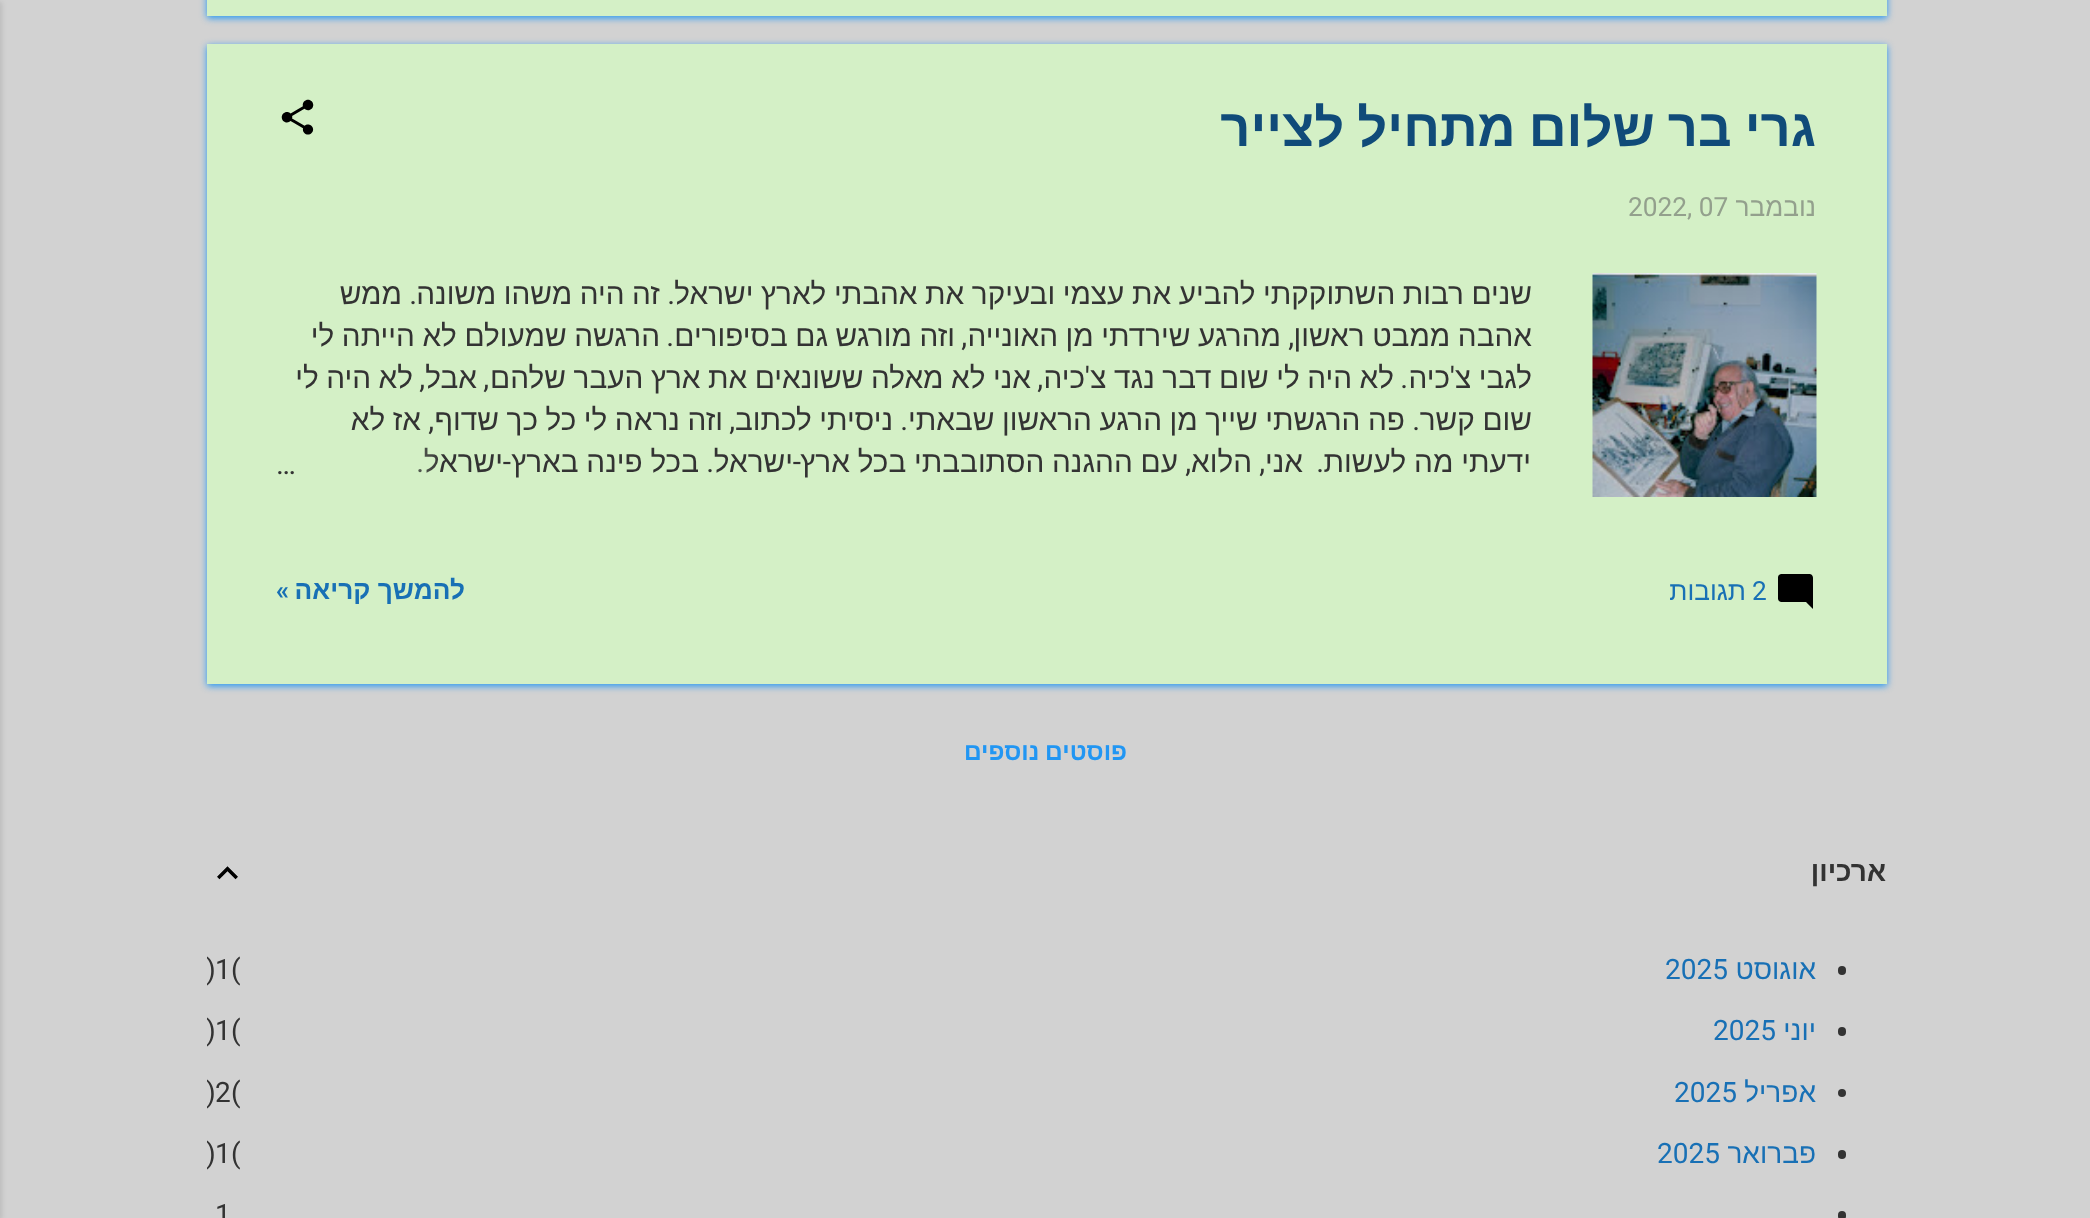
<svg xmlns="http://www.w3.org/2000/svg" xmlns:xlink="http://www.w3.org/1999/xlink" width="2090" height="1218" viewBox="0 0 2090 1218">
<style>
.cls-1{font:bold 52.5px Liberation Sans;direction:rtl;fill:#104b79}
.cls-2{font:26.25px Liberation Sans;direction:rtl;fill:#93a08d}
.cls-3{font:26.25px Roboto;fill:#93a08d}
.cls-4{font:29.75px Liberation Sans;direction:rtl;fill:#333333}
.cls-5{font:29.75px Roboto;direction:rtl;fill:#333333}
.cls-6{font:29.75px Roboto;fill:#333333}
.cls-7{font:26.25px Roboto;fill:#1870b5}
.cls-8{font:26.25px Liberation Sans;direction:rtl;fill:#1870b5}
.cls-9{font:bold 26.25px Liberation Sans;direction:rtl;fill:#1870b5}
.cls-10{font:bold 26.25px Roboto;direction:rtl;fill:#1870b5}
.cls-11{font:bold 24.5px Liberation Sans;direction:rtl;fill:#2196f3}
.cls-12{font:bold 28px Liberation Sans;direction:rtl;fill:#333333}
.cls-13{font:28px Liberation Sans;direction:rtl;fill:#1870b5}
.cls-14{font:28px Roboto;fill:#1870b5}
.cls-15{font:28px Roboto;fill:#333333}
</style>
<defs>
<clipPath id="clip1"><rect x="277" y="273" width="1256" height="210"/></clipPath>
<linearGradient id="g1" gradientUnits="userSpaceOnUse" x1="277" y1="462" x2="445" y2="462"><stop offset="0" stop-color="#d4f0c6"/><stop offset="0.2" stop-color="#d4f0c6"/><stop offset="1" stop-color="#d4f0c6" stop-opacity="0"/></linearGradient>
<clipPath id="clip2"><rect x="207" y="821" width="1680" height="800"/></clipPath>
</defs>
<rect width="100%" height="100%" fill="#d2d2d2"/>
<rect fill="#2196f3" filter="blur(3.5px)" x="207" y="-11" width="1680" height="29"/>
<rect fill="#d4f0c6" x="207" y="0" width="1680" height="16"/>
<rect fill="#2196f3" filter="blur(3.5px)" x="207" y="46" width="1680" height="640"/>
<rect fill="#d4f0c6" x="207" y="44" width="1680" height="640"/>
<image xlink:href="image0.png" x="281" y="99" width="33" height="36"/>
<image xlink:href="image1.png" x="1592" y="273" width="225" height="224"/>
<image xlink:href="image2.png" x="1778" y="574" width="35" height="35"/>
<image xlink:href="image3.png" x="217" y="866" width="21" height="14"/>
<rect fill="#333333" x="1838" y="966" width="8" height="9" rx="4"/>
<rect fill="#333333" x="1838" y="1027" width="8" height="9" rx="4"/>
<circle fill="#333333" cx="1842" cy="1093" r="4"/>
<rect fill="#333333" x="1838" y="1150" width="8" height="9" rx="4"/>
<rect fill="#333333" x="1838" y="1211" width="8" height="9" rx="4"/>
<rect fill="#000000" fill-opacity="0.1" filter="blur(2.5px)" x="-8" y="2" width="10" height="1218"/>
<text class="cls-1" x="1816" y="146" word-spacing="-1.5">גרי בר שלום מתחיל לצייר</text>
<text class="cls-2" x="1816" y="216">נובמבר</text>
<text class="cls-3" x="1628" y="216">2022, 07</text>
<g clip-path="url(#clip1)">
<text class="cls-4" x="1532" y="304" word-spacing="-0.75">שנים רבות השתוקקתי להביע את עצמי ובעיקר את אהבתי לארץ ישראל</text>
</g>
<text class="cls-5" x="675" y="304">.</text>
<text class="cls-4" x="660" y="304" word-spacing="-0.75">זה היה משהו משונה</text>
<text class="cls-5" x="417" y="304">.</text>
<text class="cls-4" x="402" y="304">ממש</text>
<text class="cls-4" x="1532" y="346" word-spacing="-0.75">אהבה ממבט ראשון</text>
<text class="cls-5" x="1294" y="346">,</text>
<text class="cls-4" x="1281" y="346" word-spacing="-0.75">מהרגע שירדתי מן האונייה</text>
<text class="cls-5" x="967" y="346">,</text>
<text class="cls-4" x="955" y="346" word-spacing="-0.75">וזה מורגש גם בסיפורים</text>
<text class="cls-5" x="674" y="346">.</text>
<text class="cls-4" x="660" y="346" word-spacing="-0.75">הרגשה שמעולם לא הייתה לי</text>
<text class="cls-4" x="1532" y="388" word-spacing="-0.75">לגבי צ</text>
<text class="cls-5" x="1455" y="388">'</text>
<text class="cls-4" x="1394" y="388" word-spacing="-0.75">לא היה לי שום דבר נגד צ</text>
<text class="cls-5" x="1090" y="388">'</text>
<text class="cls-4" x="1031" y="388" word-spacing="-0.75">אני לא מאלה ששונאים את ארץ העבר שלהם</text>
<text class="cls-4" x="477" y="388">אבל</text>
<text class="cls-4" x="413" y="388" word-spacing="-0.75">לא היה לי</text>
<text class="cls-4" x="1450" y="388">כיה</text>
<text class="cls-5" x="1408" y="388">.</text>
<text class="cls-4" x="1085" y="388">כיה</text>
<text class="cls-5" x="1043" y="388">,</text>
<text class="cls-5" x="489" y="388">,</text>
<text class="cls-5" x="425" y="388">,</text>
<text class="cls-4" x="1532" y="430" word-spacing="-0.75">שום קשר</text>
<text class="cls-5" x="1420" y="430">.</text>
<text class="cls-4" x="1405" y="430" word-spacing="-0.75">פה הרגשתי שייך מן הרגע הראשון שבאתי</text>
<text class="cls-5" x="908" y="430">.</text>
<text class="cls-4" x="893" y="430" word-spacing="-0.75">ניסיתי לכתוב</text>
<text class="cls-5" x="735" y="430">,</text>
<text class="cls-4" x="723" y="430" word-spacing="-0.75">וזה נראה לי כל כך שדוף</text>
<text class="cls-5" x="434" y="430">,</text>
<text class="cls-4" x="421" y="430" word-spacing="-0.75">אז לא</text>
<text class="cls-4" x="1531" y="472" word-spacing="-0.5">ידעתי מה לעשות</text>
<text class="cls-4" x="1303" y="472">אני</text>
<text class="cls-4" x="1252" y="472">הלוא</text>
<text class="cls-4" x="1178" y="472" word-spacing="-0.5">עם ההגנה הסתובבתי בכל ארץ</text>
<text class="cls-5" x="801" y="472">-</text>
<text class="cls-4" x="793" y="472">ישראל</text>
<text class="cls-4" x="699" y="472" word-spacing="-0.5">בכל פינה בארץ</text>
<text class="cls-5" x="511" y="472">-</text>
<text class="cls-4" x="503" y="472">ישראל</text>
<text class="cls-5" x="1324" y="472">.</text>
<text class="cls-5" x="1265" y="472">,</text>
<text class="cls-5" x="1191" y="472">,</text>
<text class="cls-5" x="714" y="472">.</text>
<text class="cls-5" x="424" y="472">.</text>
<rect fill="url(#g1)" x="418" y="447" width="24" height="26"/>
<text class="cls-6" x="276" y="474">…</text>
<text class="cls-7" x="1752" y="600">2</text>
<text class="cls-8" x="1746" y="600">תגובות</text>
<text class="cls-9" x="465" y="599">להמשך קריאה</text>
<text class="cls-10" x="289" y="599">»</text>
<text class="cls-11" x="1127" y="760" word-spacing="-1">פוסטים נוספים</text>
<text class="cls-12" x="1886" y="881">ארכיון</text>
<text class="cls-13" x="1816" y="979">אוגוסט</text>
<text class="cls-14" x="1665" y="979">2025</text>
<text class="cls-15" x="231" y="979">(</text>
<text class="cls-15" x="215" y="979">1</text>
<g clip-path="url(#clip2)">
<text class="cls-15" x="206" y="979">)</text>
</g>
<text class="cls-13" x="1816" y="1040">יוני</text>
<text class="cls-14" x="1713" y="1040">2025</text>
<text class="cls-15" x="231" y="1040">(</text>
<text class="cls-15" x="215" y="1040">1</text>
<g clip-path="url(#clip2)">
<text class="cls-15" x="206" y="1040">)</text>
</g>
<text class="cls-13" x="1816" y="1102">אפריל</text>
<text class="cls-14" x="1674" y="1102">2025</text>
<text class="cls-15" x="231" y="1102">(</text>
<text class="cls-15" x="215" y="1102">2</text>
<g clip-path="url(#clip2)">
<text class="cls-15" x="206" y="1102">)</text>
</g>
<text class="cls-13" x="1816" y="1163">פברואר</text>
<text class="cls-14" x="1657" y="1163">2025</text>
<text class="cls-15" x="231" y="1163">(</text>
<text class="cls-15" x="215" y="1163">1</text>
<g clip-path="url(#clip2)">
<text class="cls-15" x="206" y="1163">)</text>
</g>
<text class="cls-15" x="215" y="1224">1</text>
</svg>
